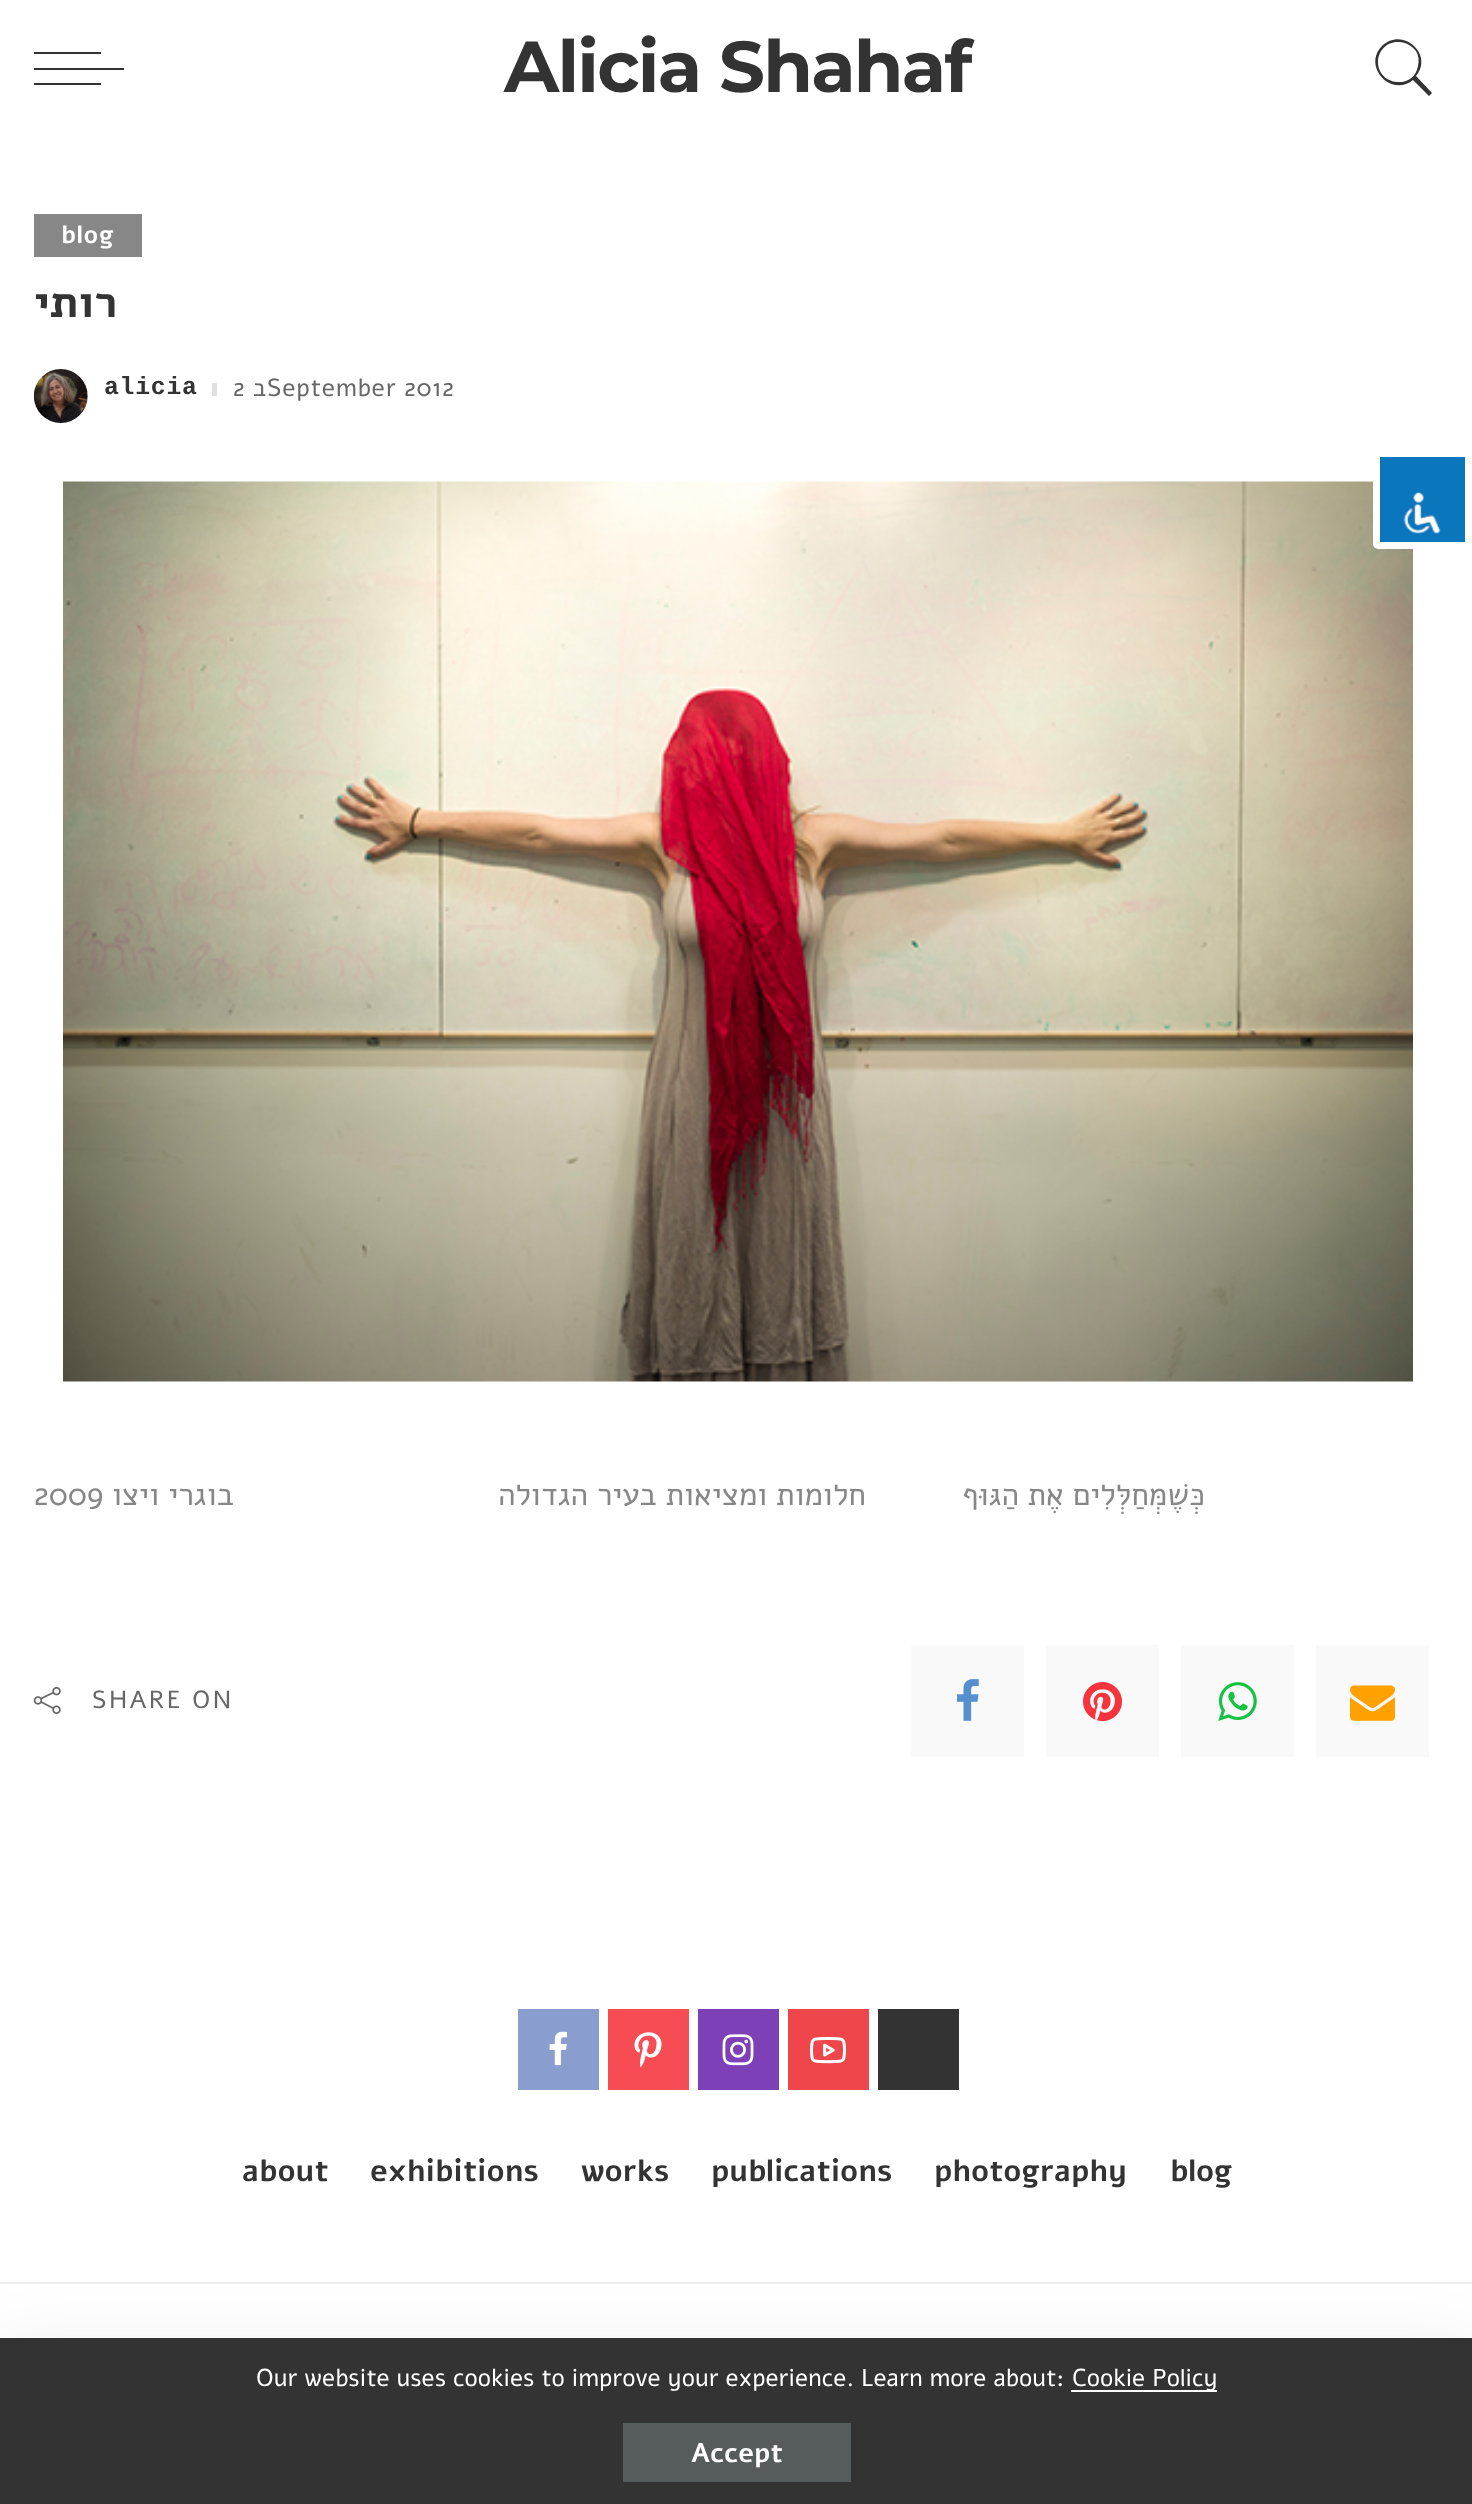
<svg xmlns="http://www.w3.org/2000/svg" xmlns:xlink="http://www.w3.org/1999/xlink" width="1472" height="2504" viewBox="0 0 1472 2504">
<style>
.cls-1{font:bold 72px Montserrat;letter-spacing:-1.75px;fill:#333333}
.cls-2{font:bold 24.75px Alef;letter-spacing:0.75px;fill:#ffffff}
.cls-3{font:bold 45px Alef;direction:rtl;fill:#333333}
.cls-4{font:bold 24.75px Liberation Mono;letter-spacing:0.75px;fill:#333333}
.cls-5{font:24.75px Alef;letter-spacing:0.75px;fill:#666666}
.cls-6{font:24.75px Alef;letter-spacing:0.75px;direction:rtl;fill:#666666}
.cls-7{font:31.5px Alef;fill:#878787}
.cls-8{font:31.5px Alef;direction:rtl;fill:#878787}
.cls-9{font:24.75px Alef;letter-spacing:2.5px;fill:#666666}
.cls-10{font:bold 30.5px Alef;fill:#333333}
.cls-11{font:24.4px Alef;fill:#ffffff}
.cls-12{font:bold 27px Alef;fill:#ffffff}
</style>
<rect width="100%" height="100%" fill="#ffffff"/>
<rect fill="#333333" x="34" y="68" width="90" height="2"/>
<rect fill="#333333" x="34" y="52" width="67" height="2"/>
<rect fill="#333333" x="34" y="83" width="67" height="2"/>
<path fill="#333333" d="M1432 93L1416 76C1434 55 1403 26 1382 46C1362 66 1391 98 1413 80L1429 96ZM1378 62C1378 50 1388 41 1399 42C1406 42 1412 46 1416 51C1419 56 1419 61 1418 66C1414 90 1378 86 1378 62Z"/>
<rect fill="#878787" x="34" y="214" width="108" height="43"/>
<image xlink:href="image0.png" x="33" y="369" width="55" height="54"/>
<rect fill="#e0e0e0" x="212" y="383" width="5" height="13"/>
<image xlink:href="image1.png" x="63" y="481" width="1350" height="901"/>
<image xlink:href="image2.png" x="33" y="1686" width="28" height="28"/>
<rect fill="#f9f9f9" x="911" y="1645" width="113" height="112"/>
<image xlink:href="image3.png" x="957" y="1679" width="22" height="42"/>
<rect fill="#f9f9f9" x="1046" y="1645" width="113" height="112"/>
<image xlink:href="image4.png" x="1083" y="1682" width="39" height="40"/>
<rect fill="#f9f9f9" x="1181" y="1645" width="113" height="112"/>
<image xlink:href="image5.png" x="1218" y="1682" width="39" height="39"/>
<rect fill="#f9f9f9" x="1316" y="1645" width="113" height="112"/>
<image xlink:href="image6.png" x="1350" y="1685" width="45" height="36"/>
<rect fill="#899dce" x="518" y="2009" width="81" height="81"/>
<image xlink:href="image7.png" x="549" y="2031" width="18" height="35"/>
<rect fill="#f74c53" x="608" y="2009" width="81" height="81"/>
<image xlink:href="image8.png" x="634" y="2032" width="28" height="36"/>
<rect fill="#7e40b6" x="698" y="2009" width="81" height="81"/>
<image xlink:href="image9.png" x="722" y="2034" width="32" height="32"/>
<rect fill="#ef464b" x="788" y="2009" width="81" height="81"/>
<image xlink:href="image10.png" x="810" y="2037" width="36" height="27"/>
<rect fill="#333333" x="878" y="2009" width="81" height="81"/>
<rect fill="#ededed" x="0" y="2282" width="1472" height="2"/>
<rect fill="#000000" fill-opacity="0.07" filter="blur(34px)" x="0" y="2347" width="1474" height="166"/>
<rect fill="#333333" x="0" y="2338" width="1472" height="166"/>
<rect fill="#ffffff" x="1071" y="2390" width="146" height="2"/>
<rect fill="#565c5c" x="623" y="2423" width="228" height="59"/>
<rect fill="#0a76be" stroke="#ffffff" stroke-width="7" x="1376.5" y="453.5" width="92" height="92" rx="1.5"/>
<image xlink:href="image11.png" x="1403" y="492" width="38" height="42"/>
<text class="cls-1" x="504" y="92">Alicia Shahaf</text>
<text class="cls-2" x="61" y="243">blog</text>
<text class="cls-3" x="117" y="317">רותי</text>
<text class="cls-4" x="104" y="394">alicia</text>
<text class="cls-5" x="233" y="396">2</text>
<text class="cls-6" x="267" y="396">ב</text>
<text class="cls-5" x="267" y="396">September 2012</text>
<text class="cls-7" x="34" y="1505">2009</text>
<text class="cls-8" x="234" y="1505">בוגרי ויצו</text>
<text class="cls-8" x="866" y="1505">חלומות ומציאות בעיר הגדולה</text>
<text class="cls-8" x="1205" y="1505">כְּשֶׁמְּחַלְּלִים אֶת הַגּוּף</text>
<text class="cls-9" x="92" y="1708">SHARE ON</text>
<text class="cls-10" x="242" y="2181">about</text>
<text class="cls-10" x="370" y="2181">exhibitions</text>
<text class="cls-10" x="581" y="2181">works</text>
<text class="cls-10" x="711" y="2181">publications</text>
<text class="cls-10" x="934" y="2181">photography</text>
<text class="cls-10" x="1170" y="2181">blog</text>
<text class="cls-11" x="256" y="2386">Our website uses cookies to improve your experience. Learn more about:</text>
<text class="cls-11" x="1072" y="2386">Cookie Policy</text>
<text class="cls-12" x="691" y="2462">Accept</text>
</svg>
